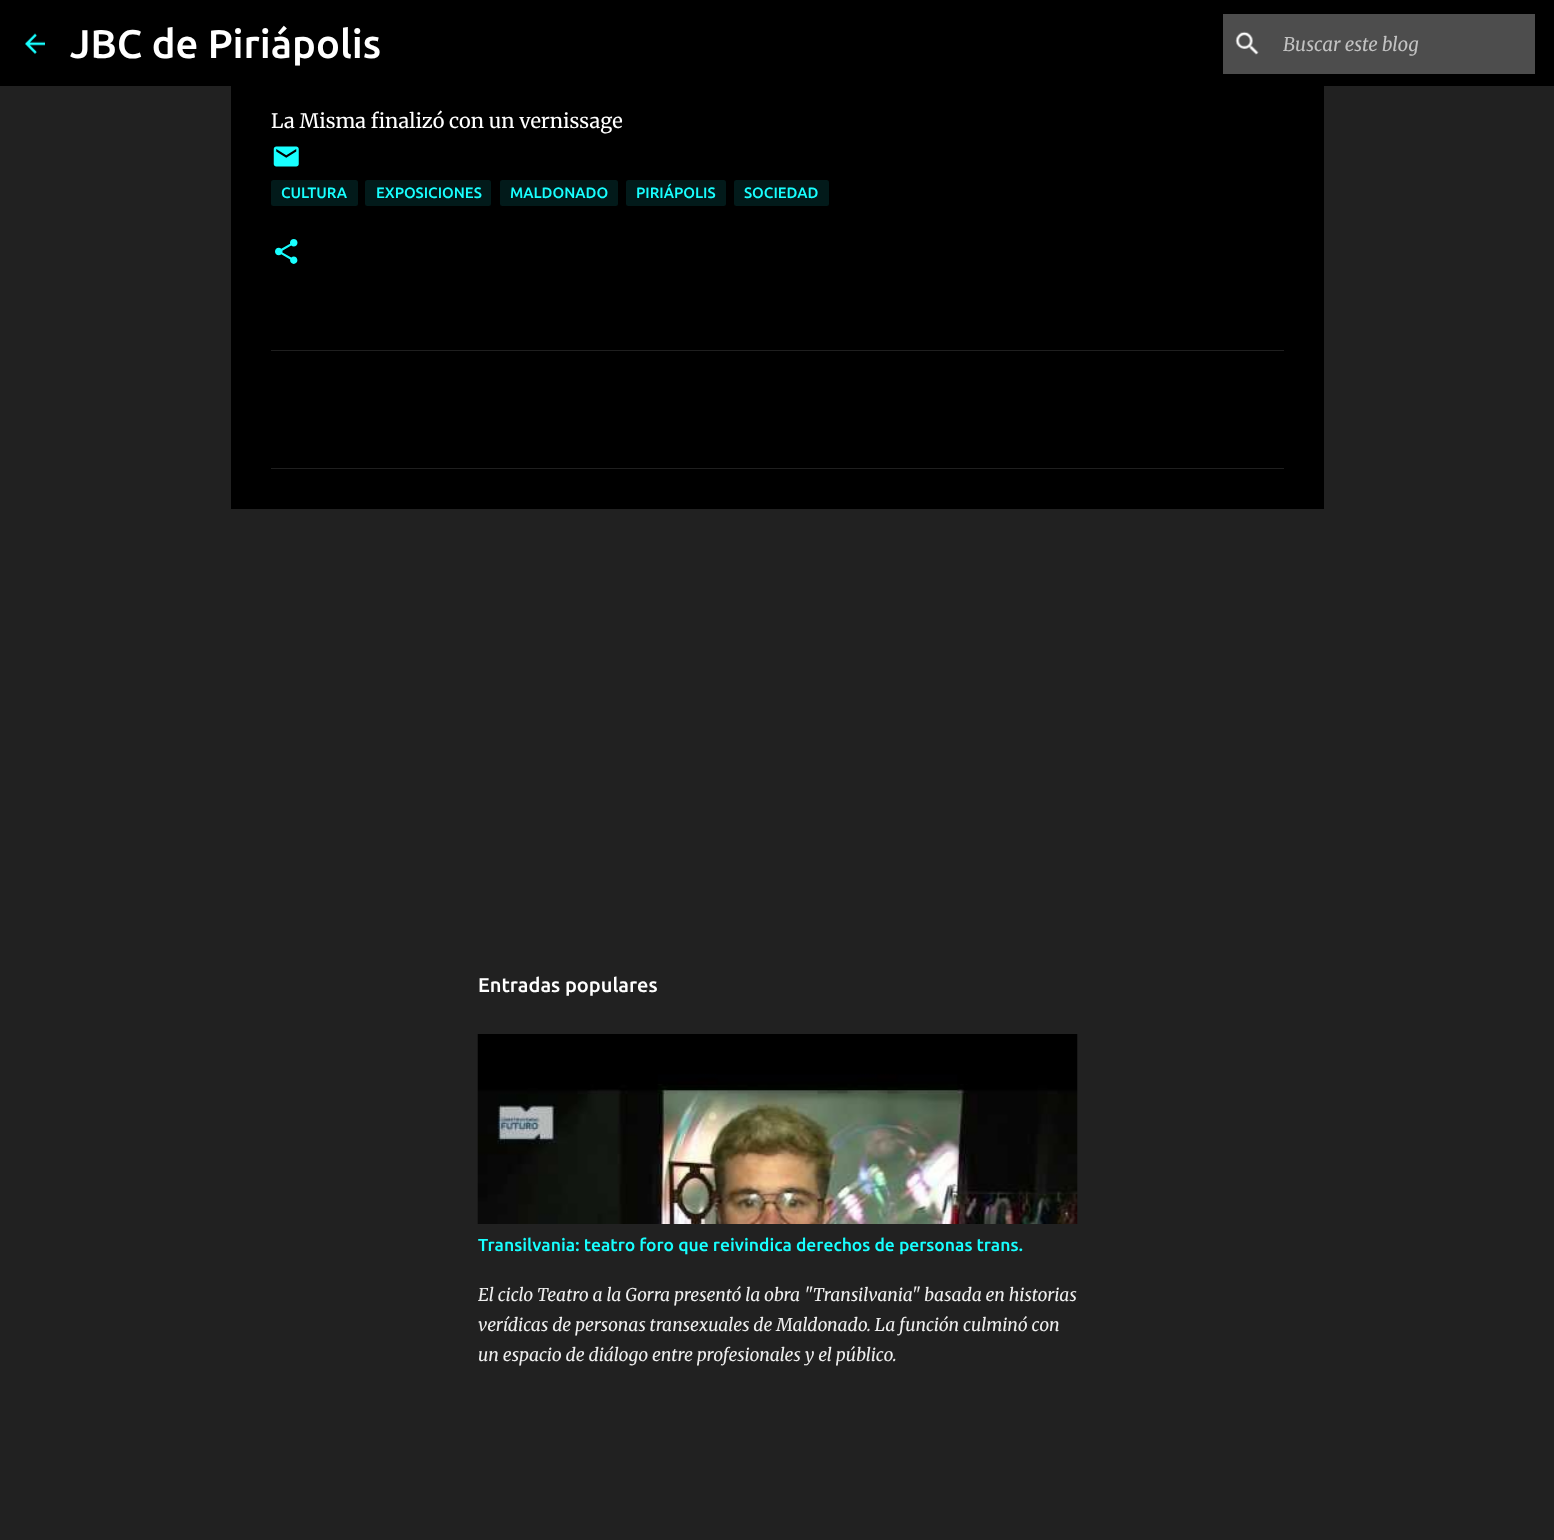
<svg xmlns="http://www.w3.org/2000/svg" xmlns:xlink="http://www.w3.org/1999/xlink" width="1554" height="1540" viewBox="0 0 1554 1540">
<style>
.cls-1{font:500 40px Ubuntu;fill:#ffffff}
.cls-2{font:italic 18.75px Merriweather;fill:#c2c2c2}
.cls-3{font:20px Merriweather;fill:#ffffff}
.cls-4{font:500 15px Ubuntu;fill:#18ffff}
.cls-5{font:500 20px Ubuntu;fill:#ffffff}
.cls-6{font:500 17.5px Ubuntu;fill:#18ffff}
.cls-7{font:italic 17.5px Merriweather;fill:#eeeeee}
</style>
<rect width="100%" height="100%" fill="#212121"/>
<rect fill="#000000" x="0" y="0" width="1554" height="86"/>
<image xlink:href="image0.png" x="25" y="33" width="20" height="21"/>
<rect fill="#4d4d4d" x="1223" y="14" width="312" height="60"/>
<image xlink:href="image1.png" x="1235" y="31" width="24" height="24"/>
<rect fill="#000000" x="231" y="86" width="1093" height="423"/>
<rect fill="#1f1f1f" x="271" y="350" width="1013" height="1"/>
<rect fill="#1f1f1f" x="271" y="468" width="1013" height="1"/>
<image xlink:href="image2.png" x="273" y="146" width="26" height="21"/>
<rect fill="#021a1a" x="271" y="180" width="87" height="26" rx="2.5"/>
<rect fill="#021a1a" x="365" y="180" width="126" height="26" rx="2.5"/>
<rect fill="#021a1a" x="500" y="180" width="118" height="26" rx="2.5"/>
<rect fill="#021a1a" x="626" y="180" width="100" height="26" rx="2.5"/>
<rect fill="#021a1a" x="734" y="180" width="95" height="26" rx="2.5"/>
<image xlink:href="image3.png" x="275" y="239" width="23" height="25"/>
<image xlink:href="image4.png" x="477" y="1034" width="601" height="190"/>
<text class="cls-1" x="70" y="58">JBC de Piriápolis</text>
<text class="cls-2" x="1283" y="51">Buscar este blog</text>
<text class="cls-3" x="271" y="128">La Misma finalizó con un vernissage</text>
<text class="cls-4" x="281" y="198">CULTURA</text>
<text class="cls-4" x="376" y="198">EXPOSICIONES</text>
<text class="cls-4" x="510" y="198">MALDONADO</text>
<text class="cls-4" x="636" y="198">PIRIÁPOLIS</text>
<text class="cls-4" x="744" y="198">SOCIEDAD</text>
<text class="cls-5" x="478" y="992">Entradas populares</text>
<text class="cls-6" x="478" y="1251">Transilvania: teatro foro que reivindica derechos de personas trans.</text>
<text class="cls-7"><tspan x="478" y="1301">El ciclo Teatro a la Gorra presentó la obra "Transilvania" basada en historias</tspan><tspan x="478" y="1331">verídicas de personas transexuales de Maldonado. La función culminó con</tspan><tspan x="478" y="1361">un espacio de diálogo entre profesionales y el público.</tspan></text>
</svg>
